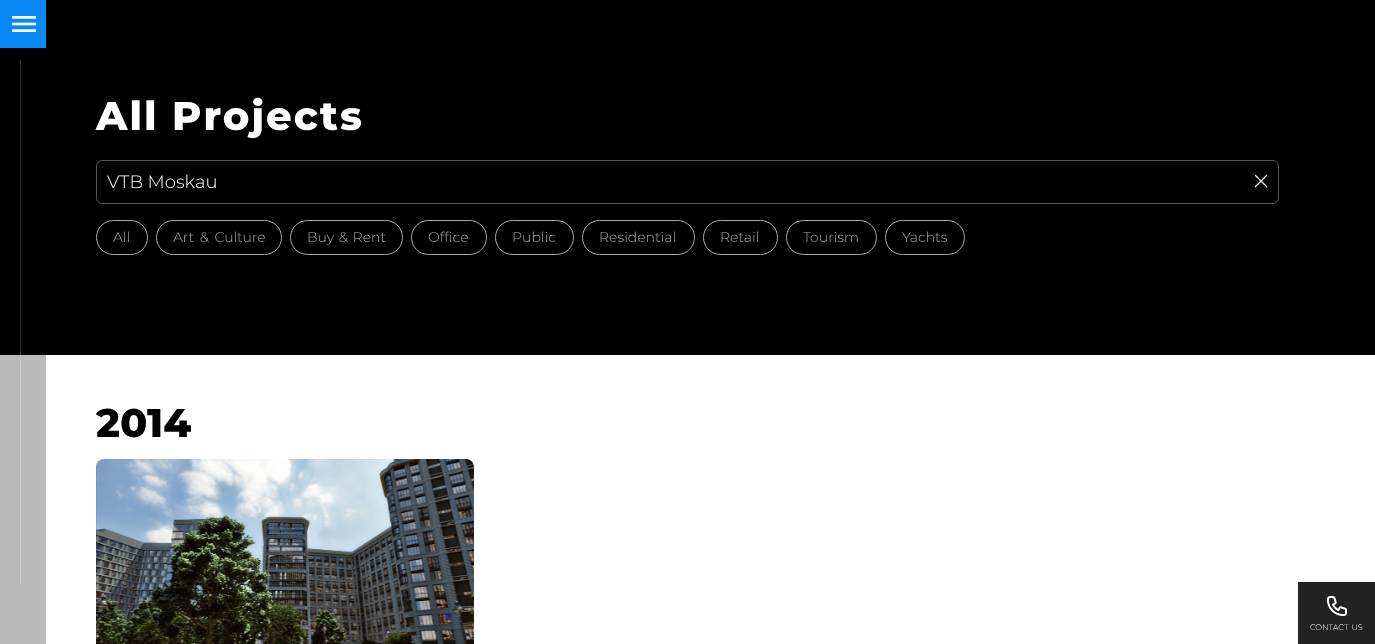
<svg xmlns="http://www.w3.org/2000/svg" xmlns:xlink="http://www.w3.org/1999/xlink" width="1375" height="644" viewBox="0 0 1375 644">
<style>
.cls-1{font:800 40px Montserrat;letter-spacing:2px;fill:#ffffff}
.cls-2{font:300 18px Montserrat;fill:#ffffff}
.cls-3{font:300 14px Montserrat;fill:#aaaaaa}
.cls-4{font:800 40px Montserrat;fill:#000000}
.cls-5{font:300 8px Montserrat;fill:#ffffff}
</style>
<rect width="100%" height="100%" fill="#000000"/>
<rect fill="#333333" x="20" y="60" width="1" height="295"/>
<rect fill="#098af6" x="0" y="0" width="46" height="48"/>
<image xlink:href="image0.png" x="12" y="16" width="24" height="16"/>
<rect fill="none" stroke="#555555" x="96.5" y="160.5" width="1182" height="43" rx="5.5"/>
<rect fill="#000000" x="1276" y="162" width="1" height="1"/>
<path fill="none" stroke="#ffffff" stroke-width="1.3" stroke-linecap="round" d="M1266.5 186.5L1255.5 175.5M1266.5 175.5L1255.5 186.5"/>
<rect fill="none" stroke="#aaaaaa" x="96.5" y="220.5" width="51" height="34" rx="17"/>
<rect fill="none" stroke="#aaaaaa" x="156.5" y="220.5" width="125" height="34" rx="17"/>
<rect fill="none" stroke="#aaaaaa" x="290.5" y="220.5" width="112" height="34" rx="17"/>
<rect fill="none" stroke="#aaaaaa" x="411.5" y="220.5" width="75" height="34" rx="17"/>
<rect fill="none" stroke="#aaaaaa" x="495.5" y="220.5" width="78" height="34" rx="17"/>
<rect fill="none" stroke="#aaaaaa" x="582.5" y="220.5" width="112" height="34" rx="17"/>
<rect fill="none" stroke="#aaaaaa" x="703.5" y="220.5" width="74" height="34" rx="17"/>
<rect fill="none" stroke="#aaaaaa" x="786.5" y="220.5" width="90" height="34" rx="17"/>
<rect fill="none" stroke="#aaaaaa" x="885.5" y="220.5" width="79" height="34" rx="17"/>
<rect fill="#ffffff" x="46" y="355" width="1329" height="289"/>
<rect fill="#bababa" x="0" y="355" width="46" height="289"/>
<rect fill="#c8c8c8" x="20" y="355" width="1" height="229"/>
<image xlink:href="image1.png" x="96" y="459" width="378" height="185"/>
<rect fill="#222222" x="1298" y="582" width="77" height="62"/>
<image xlink:href="image2.png" x="1327" y="596" width="20" height="20"/>
<text class="cls-1" x="96" y="130">All Projects</text>
<text class="cls-2" x="107" y="188">VTB Moskau</text>
<text class="cls-3" x="113" y="242">All</text>
<text class="cls-3" x="173" y="242" word-spacing="2">Art &amp; Culture</text>
<text class="cls-3" x="307" y="242" word-spacing="1">Buy &amp; Rent</text>
<text class="cls-3" x="428" y="242">Office</text>
<text class="cls-3" x="512" y="242">Public</text>
<text class="cls-3" x="599" y="242">Residential</text>
<text class="cls-3" x="720" y="242">Retail</text>
<text class="cls-3" x="803" y="242">Tourism</text>
<text class="cls-3" x="902" y="242">Yachts</text>
<text class="cls-4" x="96" y="437">2014</text>
<text class="cls-5" x="1310" y="630" word-spacing="1">CONTACT US</text>
</svg>
